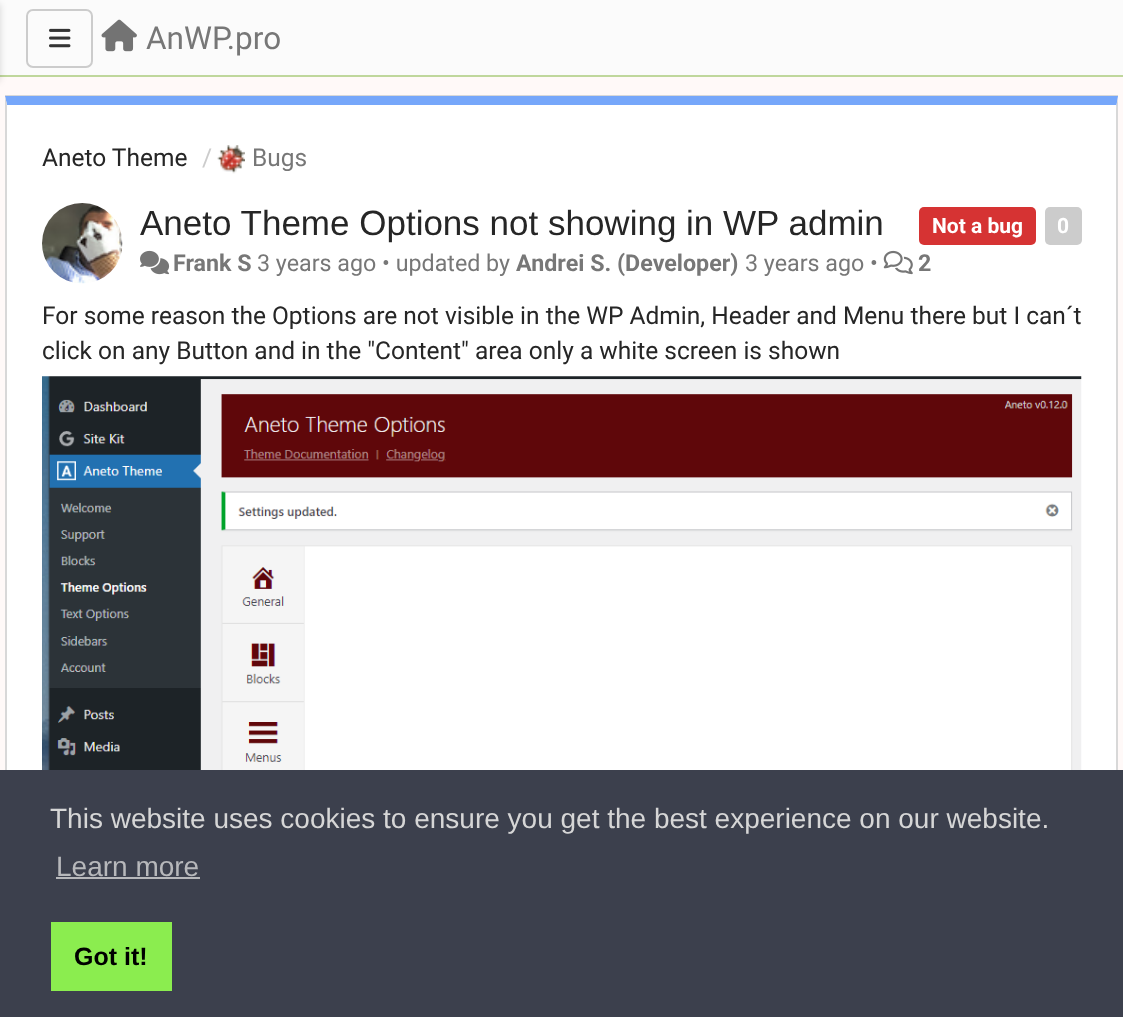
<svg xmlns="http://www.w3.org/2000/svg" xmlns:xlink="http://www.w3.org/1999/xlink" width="1123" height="1017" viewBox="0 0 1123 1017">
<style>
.cls-1{font:31.5px Roboto;fill:#777777}
.cls-2{font:24.5px Roboto;fill:#262626}
.cls-3{font:24.5px Roboto;fill:#cccccc}
.cls-4{font:24.5px Roboto;fill:#777777}
.cls-5{font:35px Liberation Sans;fill:#262626}
.cls-6{font:bold 21px Roboto;fill:#ffffff}
.cls-7{font:bold 23.25px Roboto;fill:#777777}
.cls-8{font:23.25px Roboto;fill:#777777}
.cls-9{font:28px Liberation Sans;fill:#d6d6d6}
.cls-10{font:28px Liberation Sans;fill:#b7b8bb}
.cls-11{font:bold 25px Liberation Sans;fill:#000000}
</style>
<rect width="100%" height="100%" fill="#fff9f8"/>
<rect fill="#fbfbfb" x="0" y="0" width="1123" height="75"/>
<rect fill="#bfd79c" x="0" y="75" width="1123" height="2"/>
<rect fill="#000000" fill-opacity="0.15" filter="blur(3.5px)" x="-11" y="4" width="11" height="77"/>
<rect fill="none" stroke="#cccccc" stroke-width="2" x="27" y="10" width="65" height="57" rx="6"/>
<image xlink:href="image0.png" x="49" y="28" width="22" height="20"/>
<image xlink:href="image1.png" x="101" y="19" width="36" height="33"/>
<rect fill="#d8d8d8" x="5" y="95" width="1113" height="2"/>
<path fill="#ffffff" d="M7 105H1116V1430C1116 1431 1115 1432 1113 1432H10C9 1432 7 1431 7 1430Z"/>
<path fill="#76a7fa" d="M7 105L5 96H1118L1116 108V105Z"/>
<path fill="#d8d8d8" d="M1118 98V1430L1117 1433L1116 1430V108Z"/>
<path fill="#d8d8d8" d="M7 105V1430V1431L6 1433L5 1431V96Z"/>
<image xlink:href="image2.png" x="217" y="145" width="28" height="29"/>
<image xlink:href="image3.png" x="42" y="203" width="81" height="81"/>
<rect fill="#d63333" x="919" y="207" width="117" height="38" rx="5"/>
<rect fill="#cccccc" x="1045" y="207" width="37" height="38" rx="5"/>
<image xlink:href="image4.png" x="140" y="250" width="30" height="25"/>
<image xlink:href="image5.png" x="883" y="250" width="30" height="25"/>
<image xlink:href="image6.png" x="42" y="376" width="1040" height="394"/>
<rect fill="#3c404d" x="0" y="770" width="1123" height="247"/>
<rect fill="#b7b8bb" x="56" y="877" width="144" height="2"/>
<rect fill="#8bed4f" x="51" y="922" width="121" height="69"/>
<text class="cls-1" x="146" y="49">AnWP.pro</text>
<text class="cls-2" x="42" y="166">Aneto Theme</text>
<text class="cls-3" x="202" y="166">/</text>
<text class="cls-4" x="252" y="166">Bugs</text>
<text class="cls-5" x="140" y="235">Aneto Theme Options not showing in WP admin</text>
<text class="cls-6" x="932" y="233">Not a bug</text>
<text class="cls-6" x="1057" y="233">0</text>
<text class="cls-7" x="173" y="271">Frank S</text>
<text class="cls-8" x="257" y="271">3 years ago • updated by</text>
<text class="cls-7" x="516" y="271">Andrei S. (Developer)</text>
<text class="cls-8" x="745" y="271">3 years ago •</text>
<text class="cls-7" x="918" y="271">2</text>
<text class="cls-2"><tspan x="42" y="324">For some reason the Options are not visible in the WP Admin, Header and Menu there but I can´t</tspan><tspan x="42" y="359">click on any Button and in the "Content" area only a white screen is shown</tspan></text>
<text class="cls-9" x="50" y="828">This website uses cookies to ensure you get the best experience on our website.</text>
<text class="cls-10" x="56" y="876">Learn more</text>
<text class="cls-11" x="74" y="965">Got it!</text>
</svg>
